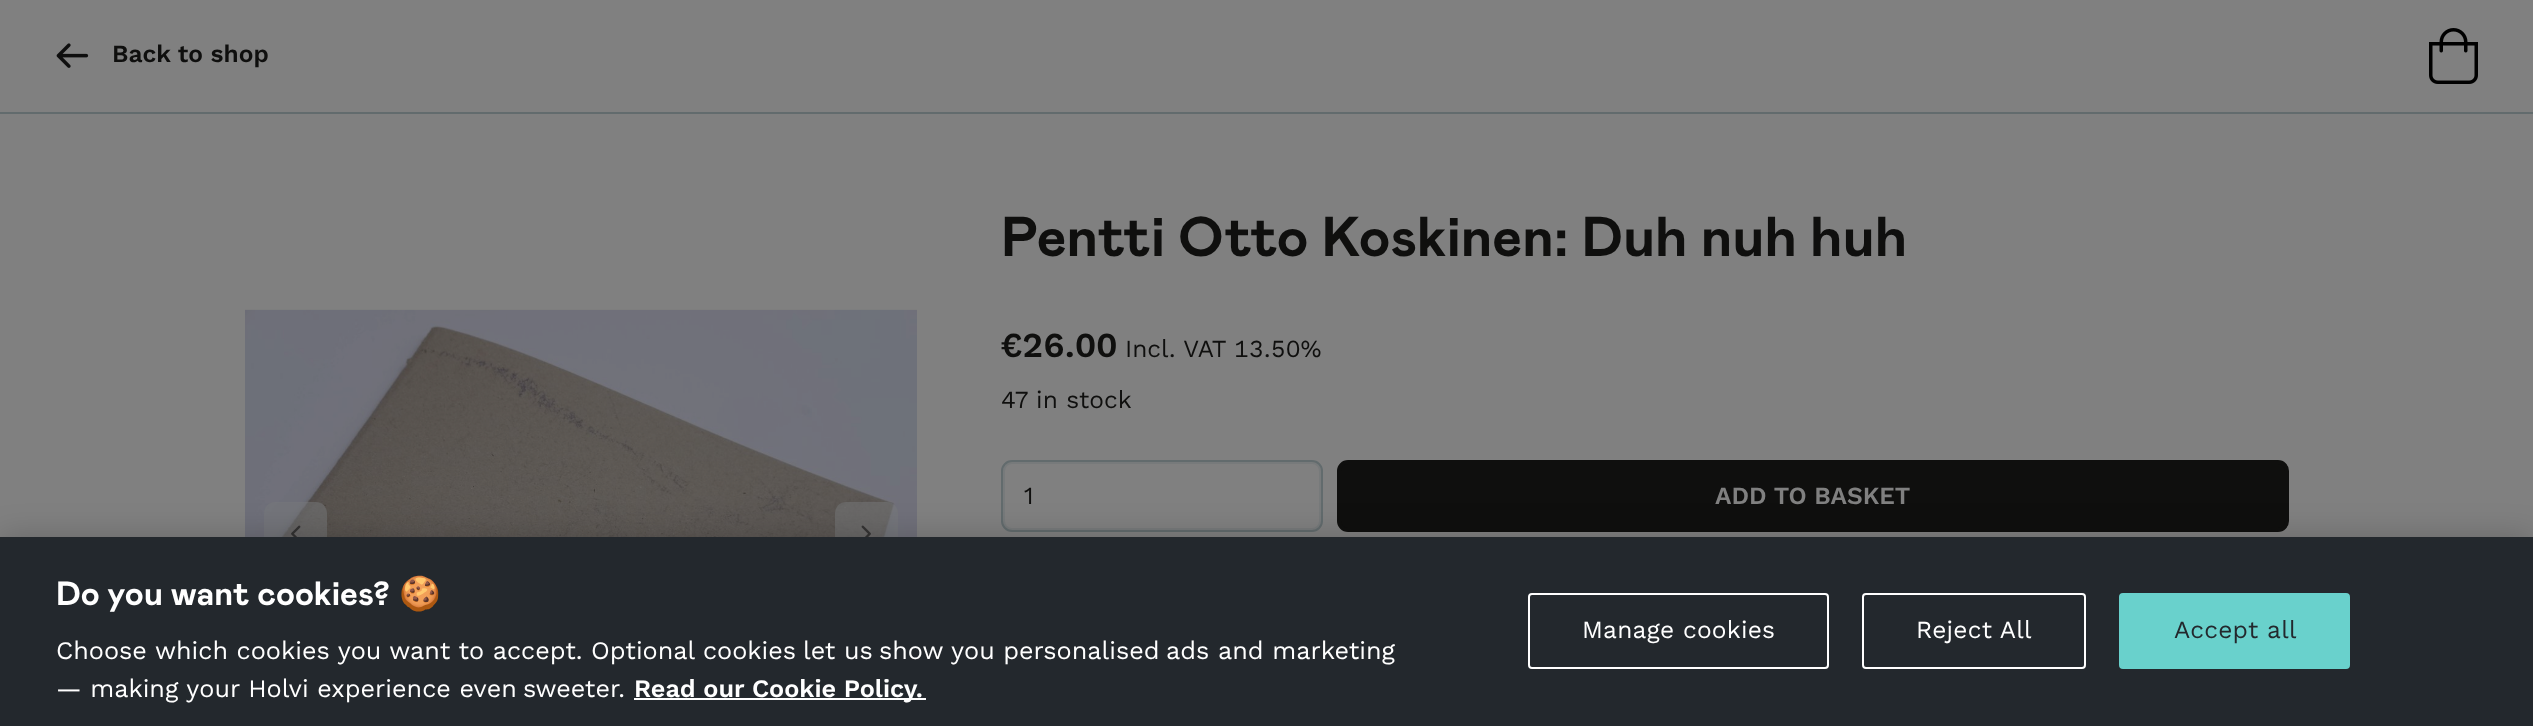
<svg xmlns="http://www.w3.org/2000/svg" xmlns:xlink="http://www.w3.org/1999/xlink" width="2533" height="726" viewBox="0 0 2533 726">
<style>
.cls-1{font:600 24.5px Work Sans;fill:#0f0f0e}
.cls-2{font:bold 56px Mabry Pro;fill:#0f0f0e}
.cls-3{font:600 35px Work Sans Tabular;fill:#0f0f0e}
.cls-4{font:24.5px Work Sans Tabular;fill:#0f0f0e}
.cls-5{font:24.5px Work Sans;fill:#0f0f0e}
.cls-6{font:600 24.5px Work Sans;fill:#808080}
.cls-7{font:bold 33.5px Mabry Pro;fill:#ffffff}
.cls-8{font:bold 33.5px Noto Color Emoji;fill:#ffffff}
.cls-9{font:25.2px Work Sans;fill:#ffffff}
.cls-10{font:600 25.2px Work Sans;fill:#ffffff}
.cls-11{font:24.5px Work Sans;letter-spacing:0.25px;fill:#ffffff}
.cls-12{font:24.5px Work Sans;letter-spacing:0.25px;fill:#23282d}
</style>
<rect width="100%" height="100%" fill="#808080"/>
<rect fill="#626b6d" x="0" y="112" width="2533" height="2"/>
<image xlink:href="image0.png" x="56" y="43" width="33" height="25"/>
<image xlink:href="image1.png" x="2429" y="28" width="49" height="56"/>
<image xlink:href="image2.png" x="245" y="309" width="672" height="228"/>
<rect fill="#777a7b" fill-opacity="0.5" x="264" y="502" width="63" height="63" rx="11"/>
<image xlink:href="image3.png" x="291" y="525" width="10" height="12"/>
<rect fill="#777a7b" fill-opacity="0.5" x="835" y="502" width="63" height="63" rx="11"/>
<image xlink:href="image4.png" x="861" y="525" width="10" height="12"/>
<rect fill="none" stroke="#777a7b" stroke-width="2" x="1004" y="463" width="316" height="66" rx="8"/>
<rect fill="none" stroke="#626b6d" stroke-width="2" x="1002" y="461" width="320" height="70" rx="10"/>
<rect fill="#0f0f0e" stroke="#0f0f0e" stroke-width="4" x="1339" y="462" width="948" height="68" rx="9"/>
<rect fill="#000000" fill-opacity="0.2" filter="blur(16px)" x="0" y="537" width="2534" height="189"/>
<rect fill="#23282d" x="0" y="537" width="2533" height="189"/>
<rect fill="#ffffff" x="634" y="698" width="292" height="2"/>
<rect fill="none" stroke="#ffffff" stroke-width="2" x="1529" y="594" width="299" height="74" rx="3"/>
<rect fill="none" stroke="#ffffff" stroke-width="2" x="1863" y="594" width="222" height="74" rx="3"/>
<rect fill="#69d1cc" stroke="#69d1cc" stroke-width="2" x="2120" y="594" width="229" height="74" rx="3"/>
<text class="cls-1" x="112" y="62">Back to shop</text>
<text class="cls-2" x="1001" y="256">Pentti Otto Koskinen: Duh nuh huh</text>
<text class="cls-3" x="1001" y="357">€26.00</text>
<text class="cls-4" x="1125" y="357">Incl. VAT 13.50%</text>
<text class="cls-5" x="1001" y="408">47 in stock</text>
<text class="cls-5" x="1024" y="504">1</text>
<text class="cls-6" x="1715" y="504">ADD TO BASKET</text>
<text class="cls-7" x="56" y="605">Do you want cookies?</text>
<text class="cls-8" x="399" y="605">🍪</text>
<text class="cls-9" x="56" y="659">Choose which cookies you want to accept. Optional cookies</text>
<text class="cls-9" x="803" y="659">let us</text>
<text class="cls-9" x="879" y="659">show you personalised</text>
<text class="cls-9" x="1166" y="659">ads and marketing</text>
<text class="cls-9" x="56" y="697">— making your Holvi experience even</text>
<text class="cls-9" x="523" y="697">sweeter.</text>
<text class="cls-10" x="634" y="697">Read our Cookie Policy.</text>
<text class="cls-11" x="1582" y="638">Manage cookies</text>
<text class="cls-11" x="1916" y="638">Reject All</text>
<text class="cls-12" x="2174" y="638">Accept all</text>
</svg>
